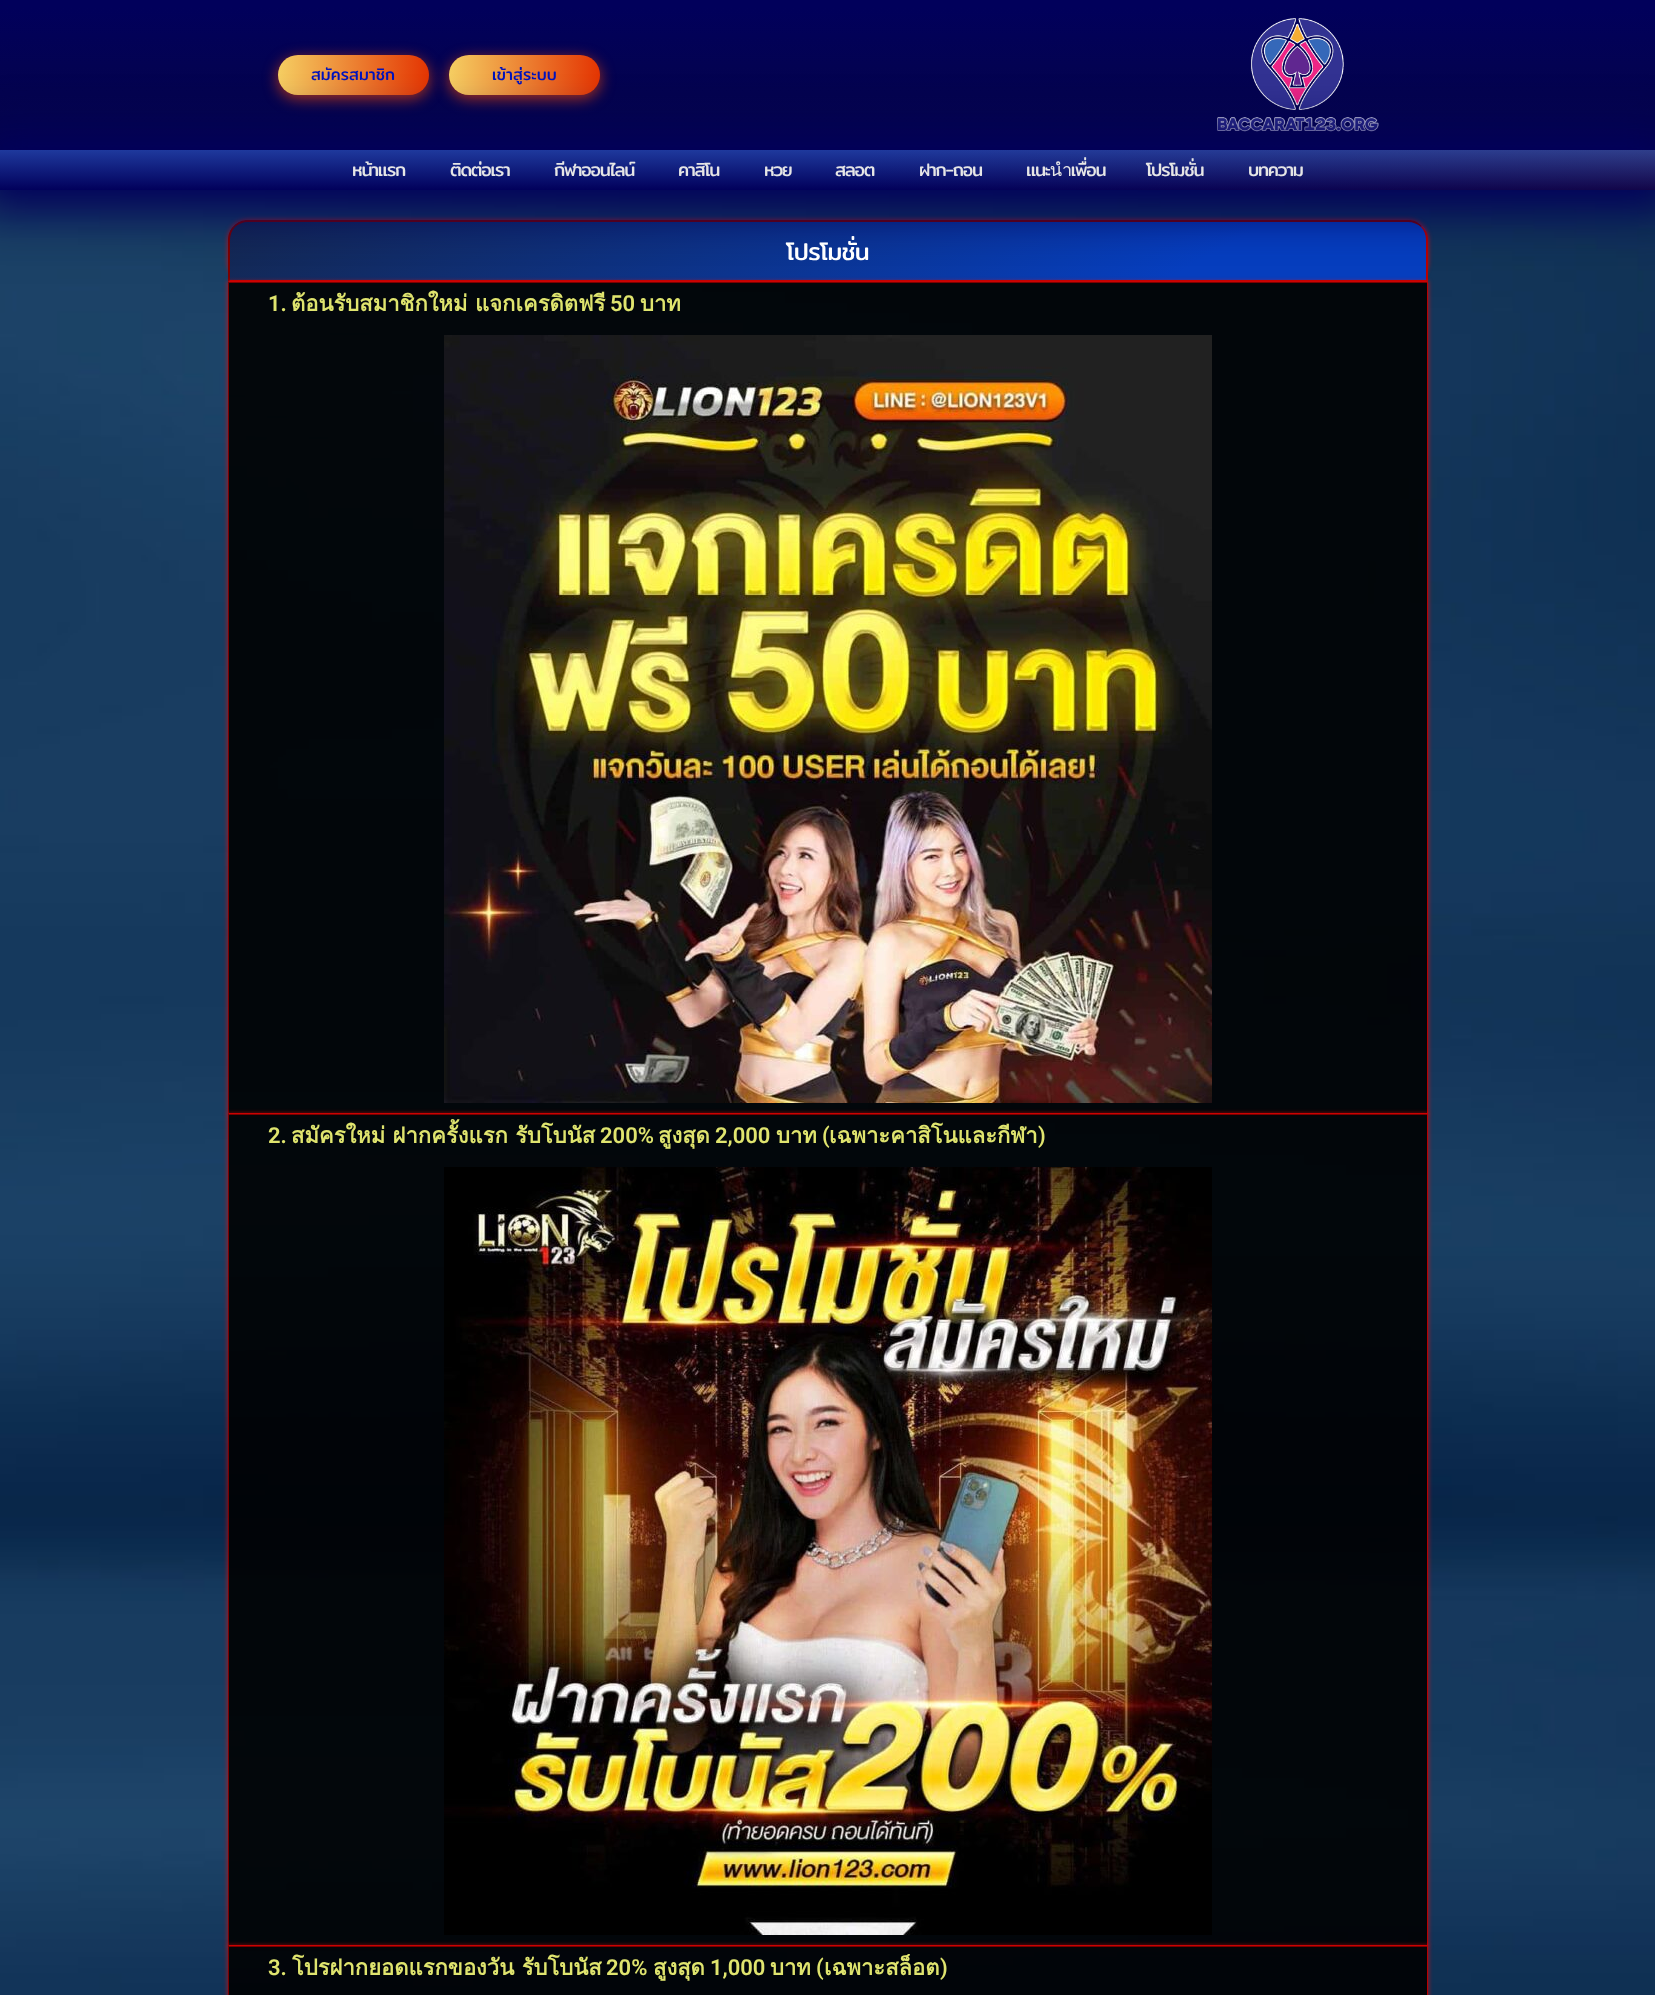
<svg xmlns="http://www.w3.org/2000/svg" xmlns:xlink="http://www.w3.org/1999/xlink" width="1655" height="1995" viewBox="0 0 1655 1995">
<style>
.cls-1{font:16px Mitr;fill:#0012bc}
.cls-2{font:18px Mitr;letter-spacing:-1.25px;fill:#e6e6e6}
.cls-3{font:24px Mitr;letter-spacing:-0.75px;fill:#ffffff}
.cls-4{font:600 22px Roboto;fill:#dfe46e}
.cls-5{font:bold 22px Loma;fill:#dfe46e}
</style>
<defs>
<linearGradient id="g1" gradientUnits="userSpaceOnUse" x1="828" y1="0" x2="828" y2="150"><stop offset="0.05" stop-color="#01005b"/><stop offset="1" stop-color="#060546"/></linearGradient>
<linearGradient id="g2" gradientUnits="userSpaceOnUse" x1="278" y1="75" x2="731" y2="75"><stop offset="0" stop-color="#f5ce62"/><stop offset="0.33" stop-color="#e43603"/><stop offset="0.67" stop-color="#fa7199"/><stop offset="1" stop-color="#e85a19"/></linearGradient>
<linearGradient id="g3" gradientUnits="userSpaceOnUse" x1="449" y1="75" x2="902" y2="75"><stop offset="0" stop-color="#f5ce62"/><stop offset="0.33" stop-color="#e43603"/><stop offset="0.67" stop-color="#fa7199"/><stop offset="1" stop-color="#e85a19"/></linearGradient>
<clipPath id="clip1"><path d="M248 220H1408C1419 220 1428 229 1428 240V282H228V240C228 229 237 220 248 220Z"/></clipPath>
<linearGradient id="g4" gradientUnits="userSpaceOnUse" x1="666" y1="-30" x2="990" y2="532"><stop offset="0" stop-color="#14274f"/><stop offset="0.8" stop-color="#063ebe"/></linearGradient>
<linearGradient id="g5" gradientUnits="userSpaceOnUse" x1="198" y1="-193" x2="1457" y2="533"><stop offset="0.52" stop-color="#01005b"/><stop offset="1" stop-color="#240b36"/></linearGradient>
<linearGradient id="g6" gradientUnits="userSpaceOnUse" x1="828" y1="150" x2="828" y2="190"><stop offset="0" stop-color="#3c72df" stop-opacity="0.5"/><stop offset="1" stop-color="#01005b" stop-opacity="0.5"/></linearGradient>
<clipPath id="clip2"><path d="M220 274H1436V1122H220ZM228 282H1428V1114H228Z" clip-rule="evenodd"/></clipPath>
<clipPath id="clip3"><path d="M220 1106H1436V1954H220ZM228 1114H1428V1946H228Z" clip-rule="evenodd"/></clipPath>
<clipPath id="clip4"><path d="M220 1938H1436V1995H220ZM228 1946H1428V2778H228Z" clip-rule="evenodd"/></clipPath>
</defs>
<rect width="100%" height="100%" fill="#ffffff"/>
<image xlink:href="image0.png" x="0" y="190" width="1655" height="1805"/>
<rect fill="url(#g1)" x="0" y="0" width="1655" height="150"/>
<rect fill="#e5420a" fill-opacity="0.75" filter="blur(7.5px)" x="278" y="59" width="151" height="40" rx="20"/>
<rect fill="url(#g2)" x="278" y="55" width="151" height="40" rx="20"/>
<rect fill="#e5420a" fill-opacity="0.75" filter="blur(7.5px)" x="449" y="59" width="151" height="40" rx="20"/>
<rect fill="url(#g3)" x="449" y="55" width="151" height="40" rx="20"/>
<image xlink:href="image1.png" x="1217" y="18" width="162" height="114"/>
<rect fill="#ff0505" fill-opacity="0.5" filter="blur(2px)" x="227" y="219" width="1202" height="64" rx="21"/>
<g clip-path="url(#clip1)">
<rect fill="url(#g4)" x="230" y="222" width="1196" height="58"/>
</g>
<path fill="#7b0000" d="M248 220C242 220 238 222 234 226L235 227C238 224 243 222 248 222H1408C1413 222 1418 224 1421 227L1422 226C1418 222 1414 220 1408 220Z"/>
<path fill="#b80000" d="M1428 282V240C1428 234 1426 230 1422 226L1421 227C1424 230 1426 235 1426 240V280Z"/>
<path fill="#b80000" d="M1428 282L1426 280H230L228 282Z"/>
<path fill="#7b0000" d="M228 282L230 280V240C230 235 232 230 235 227L234 226C230 230 228 234 228 240Z"/>
<rect fill="#01005b" filter="blur(22.5px)" x="-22" y="128" width="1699" height="84"/>
<rect fill="url(#g5)" x="0" y="150" width="1655" height="40"/>
<rect fill="url(#g6)" x="0" y="150" width="1655" height="40"/>
<g clip-path="url(#clip2)">
<rect fill="#ff0505" fill-opacity="0.5" filter="blur(2px)" x="227" y="281" width="1202" height="834"/>
</g>
<rect fill="#000000" fill-opacity="0.89" x="229" y="283" width="1198" height="830"/>
<rect fill="#7b0000" x="228" y="282" width="1200" height="1"/>
<rect fill="#b80000" x="1427" y="282" width="1" height="832"/>
<rect fill="#b80000" x="228" y="1113" width="1200" height="1"/>
<rect fill="#7b0000" x="228" y="282" width="1" height="832"/>
<image xlink:href="image2.png" x="444" y="335" width="768" height="768"/>
<g clip-path="url(#clip3)">
<rect fill="#ff0505" fill-opacity="0.5" filter="blur(2px)" x="227" y="1113" width="1202" height="834"/>
</g>
<rect fill="#000000" fill-opacity="0.89" x="229" y="1115" width="1198" height="830"/>
<rect fill="#7b0000" x="228" y="1114" width="1200" height="1"/>
<rect fill="#b80000" x="1427" y="1114" width="1" height="832"/>
<rect fill="#b80000" x="228" y="1945" width="1200" height="1"/>
<rect fill="#7b0000" x="228" y="1114" width="1" height="832"/>
<image xlink:href="image3.png" x="444" y="1167" width="768" height="768"/>
<g clip-path="url(#clip4)">
<rect fill="#ff0505" fill-opacity="0.5" filter="blur(2px)" x="227" y="1945" width="1202" height="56"/>
</g>
<rect fill="#000000" fill-opacity="0.89" x="229" y="1947" width="1198" height="48"/>
<rect fill="#7b0000" x="228" y="1946" width="1200" height="1"/>
<rect fill="#b80000" x="1427" y="1946" width="1" height="49"/>
<rect fill="#7b0000" x="228" y="1946" width="1" height="49"/>
<text class="cls-1" x="311" y="80">สมัครสมาชิก</text>
<text class="cls-1" x="492" y="80">เข้าสู่ระบบ</text>
<text class="cls-2" x="352" y="176">หน้าแรก</text>
<text class="cls-2" x="450" y="176">ติดต่อเรา</text>
<text class="cls-2" x="554" y="176">กีฬาออนไลน์</text>
<text class="cls-2" x="678" y="176">คาสิโน</text>
<text class="cls-2" x="764" y="176">หวย</text>
<text class="cls-2" x="835" y="176">สลอต</text>
<text class="cls-2" x="919" y="176">ฝาก-ถอน</text>
<text class="cls-2" x="1026" y="176">แนะนำเพื่อน</text>
<text class="cls-2" x="1146" y="176">โปรโมชั่น</text>
<text class="cls-2" x="1248" y="176">บทความ</text>
<text class="cls-3" x="786" y="260">โปรโมชั่น</text>
<text class="cls-4" x="268" y="311">1.</text>
<text class="cls-5" x="291" y="311">ต้อนรับสมาชิกใหม่ แจกเครดิตฟรี</text>
<text class="cls-4" x="610" y="311">50</text>
<text class="cls-5" x="640" y="311">บาท</text>
<text class="cls-4" x="268" y="1143">2.</text>
<text class="cls-5" x="291" y="1143">สมัครใหม่ ฝากครั้งแรก รับโบนัส</text>
<text class="cls-4" x="600" y="1143">200%</text>
<text class="cls-5" x="658" y="1143">สูงสุด</text>
<text class="cls-4" x="715" y="1143">2,000</text>
<text class="cls-5" x="776" y="1143">บาท</text>
<text class="cls-4" x="822" y="1143">(</text>
<text class="cls-5" x="829" y="1143">เฉพาะคาสิโนและกีฬา</text>
<text class="cls-4" x="1038" y="1143">)</text>
<text class="cls-4" x="268" y="1975">3.</text>
<text class="cls-5" x="292" y="1975">โปรฝากยอดแรกของวัน รับโบนัส</text>
<text class="cls-4" x="606" y="1975">20%</text>
<text class="cls-5" x="653" y="1975">สูงสุด</text>
<text class="cls-4" x="710" y="1975">1,000</text>
<text class="cls-5" x="770" y="1975">บาท</text>
<text class="cls-4" x="816" y="1975">(</text>
<text class="cls-5" x="824" y="1975">เฉพาะสล็อต</text>
<text class="cls-4" x="940" y="1975">)</text>
</svg>
